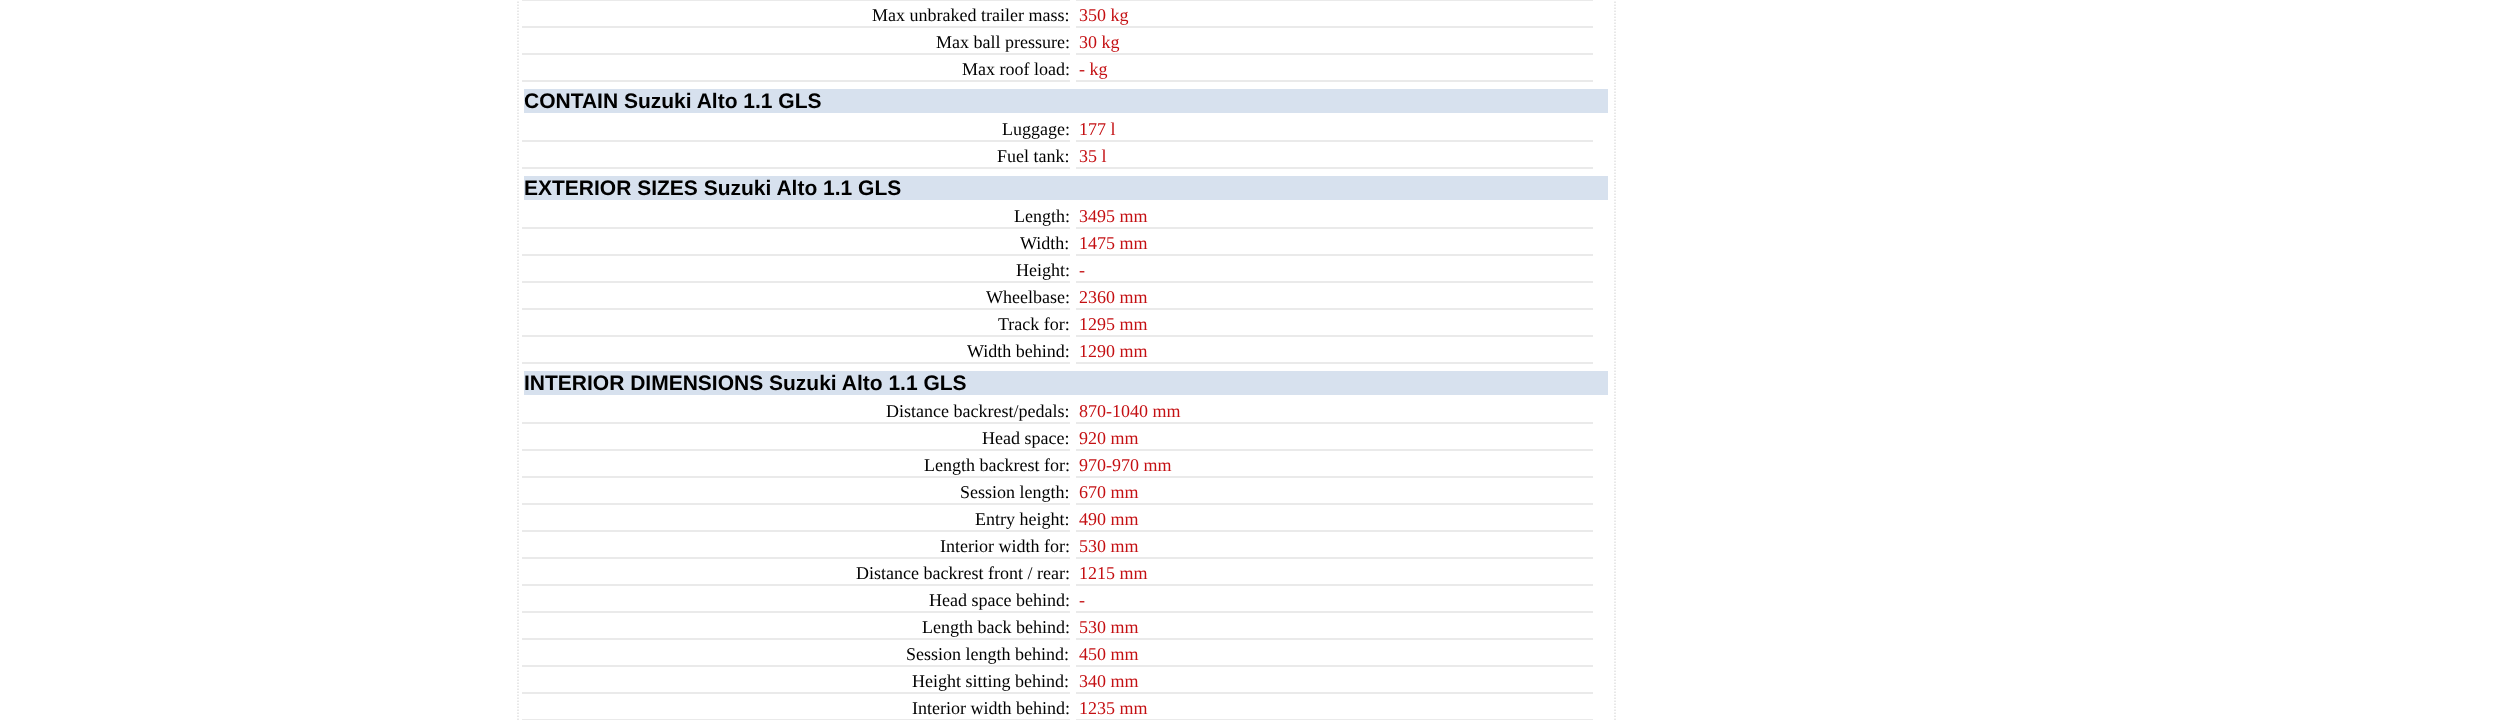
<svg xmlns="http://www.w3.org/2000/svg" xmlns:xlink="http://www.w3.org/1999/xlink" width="2502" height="720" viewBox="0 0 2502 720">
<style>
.cls-1{font:18px Liberation Serif;fill:#000000}
.cls-2{font:18px Liberation Serif;fill:#c40f12}
.cls-3{font:bold 21px Liberation Sans;fill:#000000}
</style>
<rect width="100%" height="100%" fill="#ffffff"/>
<path fill="none" stroke="#e1e1e1" stroke-width="1.5" stroke-dasharray="1.5 1.5" d="M1615-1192.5V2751"/>
<path fill="none" stroke="#e1e1e1" stroke-width="1.5" stroke-dasharray="1.5 1.5" d="M518-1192.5V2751"/>
<rect fill="#eaeaea" x="522" y="0" width="548" height="1"/>
<rect fill="#eaeaea" x="1076" y="0" width="517" height="1"/>
<rect fill="#eaeaea" x="522" y="26" width="548" height="2"/>
<rect fill="#eaeaea" x="1076" y="26" width="517" height="2"/>
<rect fill="#eaeaea" x="522" y="53" width="548" height="2"/>
<rect fill="#eaeaea" x="1076" y="53" width="517" height="2"/>
<rect fill="#eaeaea" x="522" y="80" width="548" height="2"/>
<rect fill="#eaeaea" x="1076" y="80" width="517" height="2"/>
<rect fill="#d7e1ee" x="524" y="89" width="1084" height="24"/>
<rect fill="#eaeaea" x="522" y="140" width="548" height="2"/>
<rect fill="#eaeaea" x="1076" y="140" width="517" height="2"/>
<rect fill="#eaeaea" x="522" y="167" width="548" height="2"/>
<rect fill="#eaeaea" x="1076" y="167" width="517" height="2"/>
<rect fill="#d7e1ee" x="524" y="176" width="1084" height="24"/>
<rect fill="#eaeaea" x="522" y="227" width="548" height="2"/>
<rect fill="#eaeaea" x="1076" y="227" width="517" height="2"/>
<rect fill="#eaeaea" x="522" y="254" width="548" height="2"/>
<rect fill="#eaeaea" x="1076" y="254" width="517" height="2"/>
<rect fill="#eaeaea" x="522" y="281" width="548" height="2"/>
<rect fill="#eaeaea" x="1076" y="281" width="517" height="2"/>
<rect fill="#eaeaea" x="522" y="308" width="548" height="2"/>
<rect fill="#eaeaea" x="1076" y="308" width="517" height="2"/>
<rect fill="#eaeaea" x="522" y="335" width="548" height="2"/>
<rect fill="#eaeaea" x="1076" y="335" width="517" height="2"/>
<rect fill="#eaeaea" x="522" y="362" width="548" height="2"/>
<rect fill="#eaeaea" x="1076" y="362" width="517" height="2"/>
<rect fill="#d7e1ee" x="524" y="371" width="1084" height="24"/>
<rect fill="#eaeaea" x="522" y="422" width="548" height="2"/>
<rect fill="#eaeaea" x="1076" y="422" width="517" height="2"/>
<rect fill="#eaeaea" x="522" y="449" width="548" height="2"/>
<rect fill="#eaeaea" x="1076" y="449" width="517" height="2"/>
<rect fill="#eaeaea" x="522" y="476" width="548" height="2"/>
<rect fill="#eaeaea" x="1076" y="476" width="517" height="2"/>
<rect fill="#eaeaea" x="522" y="503" width="548" height="2"/>
<rect fill="#eaeaea" x="1076" y="503" width="517" height="2"/>
<rect fill="#eaeaea" x="522" y="530" width="548" height="2"/>
<rect fill="#eaeaea" x="1076" y="530" width="517" height="2"/>
<rect fill="#eaeaea" x="522" y="557" width="548" height="2"/>
<rect fill="#eaeaea" x="1076" y="557" width="517" height="2"/>
<rect fill="#eaeaea" x="522" y="584" width="548" height="2"/>
<rect fill="#eaeaea" x="1076" y="584" width="517" height="2"/>
<rect fill="#eaeaea" x="522" y="611" width="548" height="2"/>
<rect fill="#eaeaea" x="1076" y="611" width="517" height="2"/>
<rect fill="#eaeaea" x="522" y="638" width="548" height="2"/>
<rect fill="#eaeaea" x="1076" y="638" width="517" height="2"/>
<rect fill="#eaeaea" x="522" y="665" width="548" height="2"/>
<rect fill="#eaeaea" x="1076" y="665" width="517" height="2"/>
<rect fill="#eaeaea" x="522" y="692" width="548" height="2"/>
<rect fill="#eaeaea" x="1076" y="692" width="517" height="2"/>
<rect fill="#eaeaea" x="522" y="719" width="548" height="1"/>
<rect fill="#eaeaea" x="1076" y="719" width="517" height="1"/>
<text class="cls-1" x="872" y="21">Max unbraked trailer mass:</text>
<text class="cls-2" x="1079" y="21">350 kg</text>
<text class="cls-1" x="936" y="48">Max ball pressure:</text>
<text class="cls-2" x="1079" y="48">30 kg</text>
<text class="cls-1" x="962" y="75">Max roof load:</text>
<text class="cls-2" x="1079" y="75">- kg</text>
<text class="cls-3" x="524" y="108">CONTAIN Suzuki Alto 1.1 GLS</text>
<text class="cls-1" x="1002" y="135">Luggage:</text>
<text class="cls-2" x="1079" y="135">177 l</text>
<text class="cls-1" x="997" y="162">Fuel tank:</text>
<text class="cls-2" x="1079" y="162">35 l</text>
<text class="cls-3" x="524" y="195">EXTERIOR SIZES Suzuki Alto 1.1 GLS</text>
<text class="cls-1" x="1014" y="222">Length:</text>
<text class="cls-2" x="1079" y="222">3495 mm</text>
<text class="cls-1" x="1020" y="249">Width:</text>
<text class="cls-2" x="1079" y="249">1475 mm</text>
<text class="cls-1" x="1016" y="276">Height:</text>
<text class="cls-2" x="1079" y="276">-</text>
<text class="cls-1" x="986" y="303">Wheelbase:</text>
<text class="cls-2" x="1079" y="303">2360 mm</text>
<text class="cls-1" x="998" y="330">Track for:</text>
<text class="cls-2" x="1079" y="330">1295 mm</text>
<text class="cls-1" x="967" y="357">Width behind:</text>
<text class="cls-2" x="1079" y="357">1290 mm</text>
<text class="cls-3" x="524" y="390">INTERIOR DIMENSIONS Suzuki Alto 1.1 GLS</text>
<text class="cls-1" x="886" y="417">Distance backrest/pedals:</text>
<text class="cls-2" x="1079" y="417">870-1040 mm</text>
<text class="cls-1" x="982" y="444">Head space:</text>
<text class="cls-2" x="1079" y="444">920 mm</text>
<text class="cls-1" x="924" y="471">Length backrest for:</text>
<text class="cls-2" x="1079" y="471">970-970 mm</text>
<text class="cls-1" x="960" y="498">Session length:</text>
<text class="cls-2" x="1079" y="498">670 mm</text>
<text class="cls-1" x="975" y="525">Entry height:</text>
<text class="cls-2" x="1079" y="525">490 mm</text>
<text class="cls-1" x="940" y="552">Interior width for:</text>
<text class="cls-2" x="1079" y="552">530 mm</text>
<text class="cls-1" x="856" y="579">Distance backrest front / rear:</text>
<text class="cls-2" x="1079" y="579">1215 mm</text>
<text class="cls-1" x="929" y="606">Head space behind:</text>
<text class="cls-2" x="1079" y="606">-</text>
<text class="cls-1" x="922" y="633">Length back behind:</text>
<text class="cls-2" x="1079" y="633">530 mm</text>
<text class="cls-1" x="906" y="660">Session length behind:</text>
<text class="cls-2" x="1079" y="660">450 mm</text>
<text class="cls-1" x="912" y="687">Height sitting behind:</text>
<text class="cls-2" x="1079" y="687">340 mm</text>
<text class="cls-1" x="912" y="714">Interior width behind:</text>
<text class="cls-2" x="1079" y="714">1235 mm</text>
</svg>
